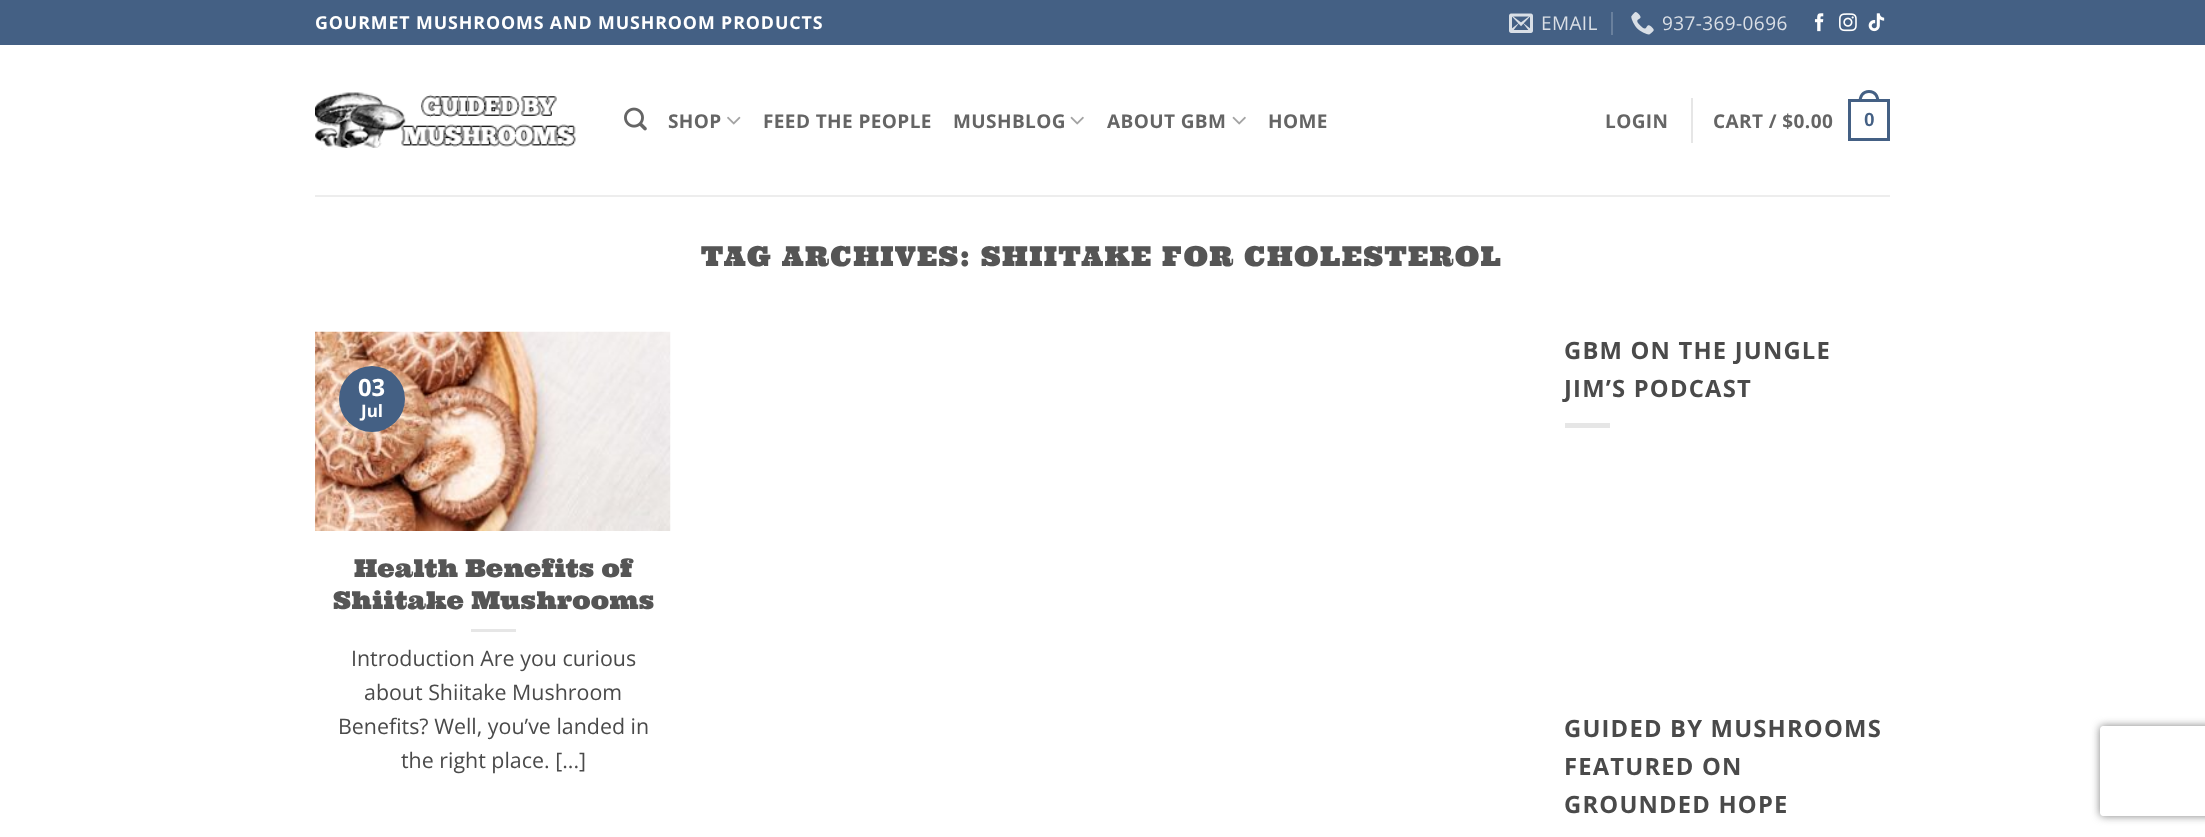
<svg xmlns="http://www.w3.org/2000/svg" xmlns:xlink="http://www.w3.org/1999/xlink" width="2205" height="837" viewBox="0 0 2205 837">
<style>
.cls-1{font:bold 17.8px Open Sans;letter-spacing:0.9px;fill:#ffffff}
.cls-2{font:19px Open Sans;letter-spacing:0.4px;fill:#dadfe6}
.cls-3{font:bold 19px Open Sans;letter-spacing:0.4px;fill:#656565}
.cls-4{font:bold 19px Liberation Sans;letter-spacing:0.4px;fill:#446084}
.cls-5{font:27.3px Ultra;letter-spacing:1.35px;fill:#555555}
.cls-6{font:bold 23.75px Open Sans;fill:#ffffff}
.cls-7{font:bold 17px Open Sans;fill:#ffffff}
.cls-8{font:24.6px Ultra;fill:#555555}
.cls-9{font:21.4px Open Sans;fill:#4a4a4a}
.cls-10{font:bold 23.75px Open Sans;letter-spacing:1.2px;fill:#4a4a4a}
</style>
<defs>
<clipPath id="clip1"><path d="M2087 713H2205V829H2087ZM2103 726H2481C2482.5 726 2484 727.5 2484 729V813C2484 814.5 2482.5 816 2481 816H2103C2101.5 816 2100 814.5 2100 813V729C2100 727.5 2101.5 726 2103 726Z" clip-rule="evenodd"/></clipPath>
</defs>
<rect width="100%" height="100%" fill="#ffffff"/>
<rect fill="#446084" x="0" y="0" width="2205" height="45"/>
<image xlink:href="image0.png" x="1509" y="13" width="24" height="20"/>
<rect fill="#69809d" x="1611" y="12" width="2" height="23"/>
<image xlink:href="image1.png" x="1631" y="12" width="23" height="23"/>
<image xlink:href="image2.png" x="1814" y="13" width="10" height="19"/>
<image xlink:href="image3.png" x="1839" y="13" width="18" height="19"/>
<image xlink:href="image4.png" x="1868" y="13" width="17" height="19"/>
<image xlink:href="image5.png" x="315" y="92" width="261" height="58"/>
<image xlink:href="image6.png" x="624" y="107" width="23" height="24"/>
<image xlink:href="image7.png" x="727" y="116" width="14" height="9"/>
<image xlink:href="image8.png" x="1070" y="116" width="14" height="9"/>
<image xlink:href="image8.png" x="1232" y="116" width="14" height="9"/>
<rect fill="#e6e6e6" x="1691" y="98" width="2" height="45"/>
<rect fill="none" stroke="#446084" stroke-width="3" x="1849.5" y="100.5" width="39" height="39"/>
<path fill="#446084" fill-rule="evenodd" d="M1869 90C1876 90 1879.5 95.5 1879.5 102H1858.5C1858.5 95.5 1862 90 1869 90ZM1869 93C1874.5 93 1876.5 97.5 1876.5 102H1861.5C1861.5 97.5 1863.5 93 1869 93Z"/>
<rect fill="#ededed" x="315" y="195" width="1575" height="2"/>
<image xlink:href="image9.png" x="315" y="331" width="356" height="200"/>
<circle fill="#446084" cx="372" cy="399" r="33"/>
<rect fill="#e6e6e6" x="471" y="629" width="45" height="3"/>
<rect fill="#e6e6e6" x="1565" y="423" width="45" height="5"/>
<g clip-path="url(#clip1)">
<rect fill="#808080" filter="blur(4px)" x="2100" y="726" width="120" height="90" rx="3"/>
</g>
<text class="cls-1" x="315" y="29">GOURMET MUSHROOMS AND MUSHROOM PRODUCTS</text>
<text class="cls-2" x="1541" y="30">EMAIL</text>
<text class="cls-2" x="1662" y="30">937-369-0696</text>
<text class="cls-3" x="668" y="128">SHOP</text>
<text class="cls-3" x="763" y="128">FEED THE PEOPLE</text>
<text class="cls-3" x="953" y="128">MUSHBLOG</text>
<text class="cls-3" x="1107" y="128">ABOUT GBM</text>
<text class="cls-3" x="1268" y="128">HOME</text>
<text class="cls-3" x="1605" y="128">LOGIN</text>
<text class="cls-3" x="1713" y="128">CART / $0.00</text>
<text class="cls-4" x="1864" y="126">0</text>
<text class="cls-5" x="701" y="266">TAG ARCHIVES: SHIITAKE FOR CHOLESTEROL</text>
<text class="cls-6" x="358" y="396">03</text>
<text class="cls-7" x="361" y="417">Jul</text>
<text class="cls-8" x="354" y="577">Health Benefits of</text>
<text class="cls-8" x="333" y="609">Shiitake Mushrooms</text>
<text class="cls-9" x="351" y="666">Introduction Are you curious</text>
<text class="cls-9" x="364" y="700">about Shiitake Mushroom</text>
<text class="cls-9" x="338" y="734">Benefits? Well, you’ve landed in</text>
<text class="cls-9" x="401" y="768">the right place. [...]</text>
<text class="cls-10"><tspan x="1564" y="359">GBM ON THE JUNGLE</tspan><tspan x="1564" y="397">JIM’S PODCAST</tspan></text>
<text class="cls-10"><tspan x="1564" y="737">GUIDED BY MUSHROOMS</tspan><tspan x="1564" y="775">FEATURED ON</tspan><tspan x="1564" y="813">GROUNDED HOPE</tspan></text>
</svg>
